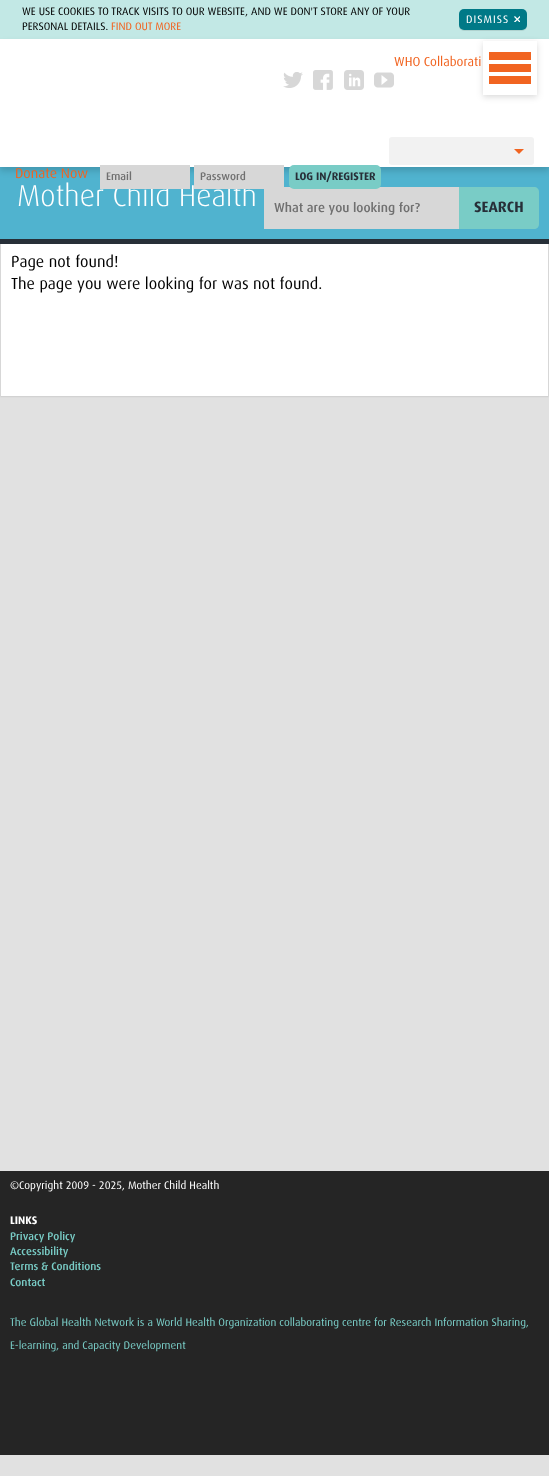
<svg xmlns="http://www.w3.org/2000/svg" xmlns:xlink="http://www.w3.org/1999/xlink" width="549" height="1476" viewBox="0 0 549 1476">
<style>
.cls-1{font:10.85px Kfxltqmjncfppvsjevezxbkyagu;fill:#000000}
.cls-2{font:10.85px Kfxltqmjncfppvsjevezxbkyagu;fill:#f16421}
.cls-3{font:10.85px Kfxltqmjncfppvsjevezxbkyagu;letter-spacing:1px;fill:#ffffff}
.cls-4{font:13px Kfxltqmjncfppvsjevezxbkyagu;fill:#f16421}
.cls-5{font:14px Kfxltqmjncfppvsjevezxbkyagu;fill:#f16421}
.cls-6{font:bold 11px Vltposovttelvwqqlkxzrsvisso;fill:#272f38}
.cls-7{font:300 30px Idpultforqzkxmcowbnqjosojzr;fill:#ffffff}
.cls-8{font:500 11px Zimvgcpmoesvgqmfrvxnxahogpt;fill:#707070}
.cls-9{font:500 13px Zimvgcpmoesvgqmfrvxnxahogpt;fill:#707070}
.cls-10{font:bold 15px Vltposovttelvwqqlkxzrsvisso;fill:#272f38}
.cls-11{font:16px Kfxltqmjncfppvsjevezxbkyagu;fill:#000000}
.cls-12{font:11px Kfxltqmjncfppvsjevezxbkyagu;fill:#ffffff}
.cls-13{font:bold 11px Vltposovttelvwqqlkxzrsvisso;fill:#ffffff}
.cls-14{font:500 11px Zimvgcpmoesvgqmfrvxnxahogpt;fill:#79ccc6}
.cls-15{font:11px Kfxltqmjncfppvsjevezxbkyagu;fill:#79ccc6}
</style>
<defs>
<clipPath id="clip1"><rect x="274" y="202" width="180" height="13"/></clipPath>
</defs>
<rect width="100%" height="100%" fill="#e1e1e1"/>
<rect fill="#c2e8e5" x="0" y="0" width="549" height="39"/>
<rect fill="#0d1314" fill-opacity="0.1" filter="blur(0.5px)" x="459" y="10" width="68" height="21" rx="5"/>
<rect fill="#007987" x="459" y="9" width="68" height="21" rx="5"/>
<image xlink:href="image0.png" x="514" y="16" width="6" height="6"/>
<rect fill="#50b3cf" x="0" y="167" width="549" height="72"/>
<rect fill="#000000" fill-opacity="0.15" filter="blur(3px)" x="0" y="43" width="549" height="128"/>
<rect fill="#ffffff" x="0" y="39" width="549" height="128"/>
<image xlink:href="image1.png" x="283" y="72" width="20" height="16"/>
<image xlink:href="image2.png" x="313" y="70" width="20" height="20"/>
<image xlink:href="image3.png" x="344" y="70" width="20" height="20"/>
<image xlink:href="image4.png" x="374" y="72" width="20" height="16"/>
<rect fill="#f2f2f2" x="389" y="137" width="145" height="28" rx="3"/>
<path fill="#f16421" d="M514 149H524L519 154Z"/>
<rect fill="#000000" fill-opacity="0.15" filter="blur(3px)" x="483" y="43" width="54" height="54"/>
<rect fill="#ffffff" x="483" y="41" width="54" height="54"/>
<path fill="#f16421" d="M489 52H531V60H489ZM489 64H531V72H489ZM489 76H531V84H489Z"/>
<rect fill="#d7d7d7" x="264" y="187" width="195" height="42"/>
<rect fill="#79ccc6" x="289" y="165" width="92" height="24" rx="5"/>
<path fill="#79ccc6" d="M459 187H534C537 187 539 189 539 192V224C539 227 537 229 534 229H459Z"/>
<rect fill="#000000" fill-opacity="0.2" filter="blur(1px)" x="0" y="244" width="549" height="152"/>
<rect fill="#272f38" x="0" y="239" width="549" height="5"/>
<rect fill="#ffffff" x="1" y="244" width="547" height="152"/>
<rect fill="#d7d7d7" x="548" y="244" width="1" height="152"/>
<rect fill="#d7d7d7" x="0" y="244" width="1" height="152"/>
<rect fill="#252525" x="0" y="1171" width="549" height="284"/>
<text class="cls-1"><tspan x="22" y="15">WE USE COOKIES TO TRACK VISITS TO OUR WEBSITE, AND WE DON'T STORE ANY OF YOUR</tspan><tspan x="22" y="30">PERSONAL DETAILS.</tspan></text>
<text class="cls-2" x="111" y="30">FIND OUT MORE</text>
<text class="cls-3" x="466" y="23">DISMISS</text>
<text class="cls-4" x="394" y="66">WHO Collaborati</text>
<text class="cls-5" x="15" y="178">Donate Now</text>
<text class="cls-6" x="295" y="180">LOG IN/REGISTER</text>
<text class="cls-7" x="17" y="206">Mother Child Health</text>
<rect fill="#d7d7d7" x="194" y="165" width="90" height="24"/>
<text class="cls-8" x="200" y="180">Password</text>
<rect fill="#d7d7d7" x="100" y="165" width="90" height="24"/>
<text class="cls-8" x="106" y="180">Email</text>
<g clip-path="url(#clip1)">
<text class="cls-9" x="274" y="212">What are you looking for?</text>
</g>
<text class="cls-10" x="474" y="212">SEARCH</text>
<text class="cls-11"><tspan x="11" y="267">Page not found!</tspan><tspan x="11" y="289">The page you were looking for was not found.</tspan></text>
<text class="cls-12" x="10" y="1189">©Copyright 2009 - 2025, Mother Child Health</text>
<text class="cls-13" x="10" y="1224">LINKS</text>
<text class="cls-14"><tspan x="10" y="1240">Privacy Policy</tspan><tspan x="10" y="1255">Accessibility</tspan><tspan x="10" y="1270">Terms &amp; Conditions</tspan><tspan x="10" y="1286">Contact</tspan></text>
<text class="cls-15" x="10" y="1326">The Global Health Network is a World Health Organization collaborating centre for Research Information Sharing,</text>
<text class="cls-15" x="10" y="1349">E-learning, and Capacity Development</text>
</svg>
